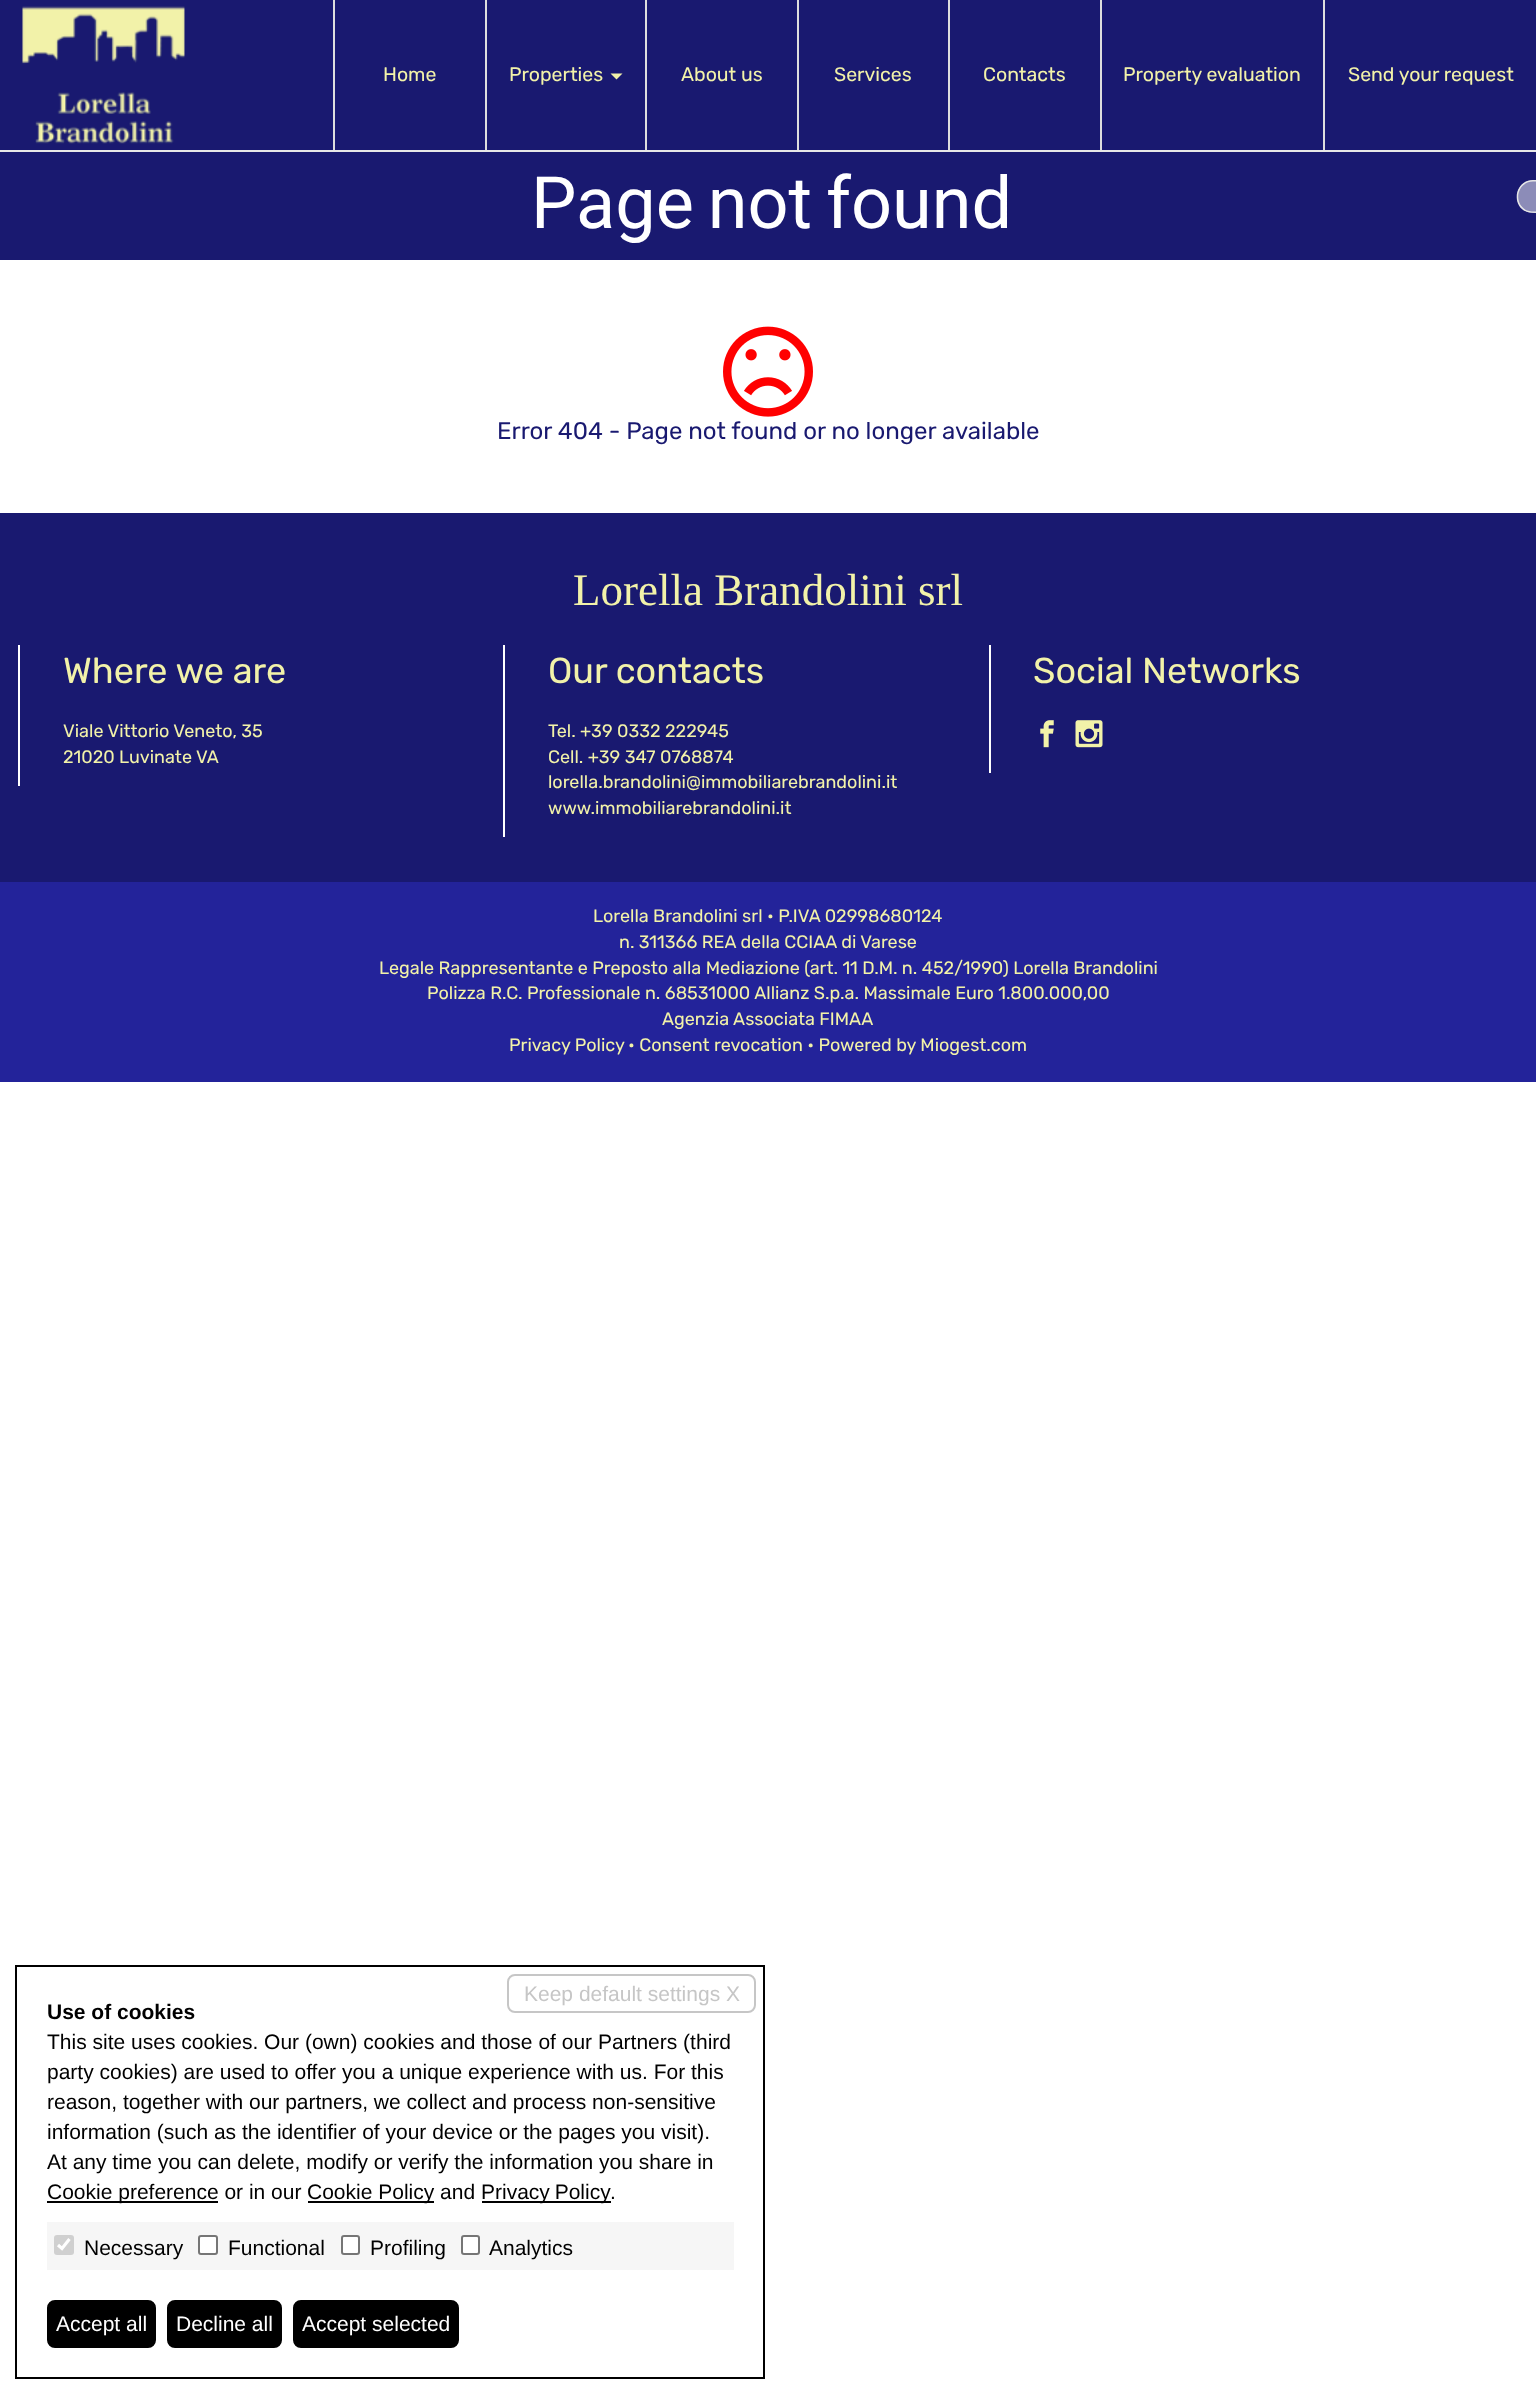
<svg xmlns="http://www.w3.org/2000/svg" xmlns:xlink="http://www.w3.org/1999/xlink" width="1536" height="2393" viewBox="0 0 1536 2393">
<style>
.cls-1{font:19.5px Rubik;fill:#f2f2a9}
.cls-2{font:72px Roboto;fill:#ffffff}
.cls-3{font:24px Rubik;fill:#191970}
.cls-4{font:45px Liberation Serif;fill:#f2f2a9}
.cls-5{font:36px Rubik;fill:#f2f2a9}
.cls-6{font:18px Rubik;fill:#f2f2a9}
.cls-7{font:21px Liberation Sans;fill:#c6c6c6}
.cls-8{font:bold 21px Liberation Sans;fill:#000000}
.cls-9{font:21px Liberation Sans;fill:#000000}
.cls-10{font:21px Liberation Sans;fill:#ffffff}
</style>
<rect width="100%" height="100%" fill="#ffffff"/>
<rect fill="#191970" x="0" y="0" width="1536" height="150"/>
<rect fill="#e7e7e7" x="0" y="150" width="1536" height="2"/>
<image xlink:href="image0.png" x="22" y="6" width="163" height="138"/>
<rect fill="#dddddd" x="333" y="0" width="2" height="150"/>
<rect fill="#dddddd" x="485" y="0" width="2" height="150"/>
<path fill="#f2f2a9" d="M610.5 73.5H622.5L616.5 79.5Z"/>
<rect fill="#dddddd" x="645" y="0" width="2" height="150"/>
<rect fill="#dddddd" x="797" y="0" width="2" height="150"/>
<rect fill="#dddddd" x="948" y="0" width="2" height="150"/>
<rect fill="#dddddd" x="1100" y="0" width="2" height="150"/>
<rect fill="#dddddd" x="1323" y="0" width="2" height="150"/>
<rect fill="#191970" x="0" y="152" width="1536" height="108"/>
<path fill="#8c8cb8" d="M1533.5 180H1536V213H1533.5C1524.5 213 1517 205.5 1517 196.5C1517 187.5 1524.5 180 1533.5 180Z"/>
<path fill="#e6e6e6" fill-rule="evenodd" d="M1533 180H1536V213L1529.5 212.5C1510.5 209 1513.5 180 1533 180ZM1533 181.5H1536V211.5C1533 211.5 1530 211.5 1527 210.5C1512.5 204 1517 181.5 1533 181.5Z"/>
<image xlink:href="image1.png" x="723" y="326" width="90" height="91"/>
<rect fill="#191970" x="0" y="513" width="1536" height="369"/>
<rect fill="#ffffff" x="18" y="645" width="2" height="141"/>
<rect fill="#ffffff" x="503" y="645" width="2" height="192"/>
<rect fill="#ffffff" x="989" y="645" width="2" height="128"/>
<image xlink:href="image2.png" x="1040" y="720" width="14" height="28"/>
<image xlink:href="image3.png" x="1075" y="720" width="28" height="28"/>
<rect fill="#23239a" x="0" y="882" width="1536" height="200"/>
<rect fill="none" stroke="#000000" stroke-width="2" x="16" y="1966" width="748" height="412"/>
<rect fill="none" stroke="#c6c6c6" stroke-width="2" x="508" y="1975" width="247" height="37" rx="7"/>
<rect fill="#000000" x="47" y="2201" width="171" height="2"/>
<rect fill="#000000" x="308" y="2201" width="126" height="2"/>
<rect fill="#000000" x="482" y="2201" width="129" height="2"/>
<rect fill="#f6f6f6" x="47" y="2222" width="687" height="48"/>
<rect fill="#d0d0d0" x="54" y="2235" width="20" height="20" rx="3"/>
<path fill="none" stroke="#ffffff" stroke-width="3.1" d="M58 2245L62 2248.5L69.5 2239"/>
<rect fill="#ffffff" stroke="#767676" stroke-width="2" x="199" y="2236" width="18" height="18" rx="2"/>
<rect fill="#ffffff" stroke="#767676" stroke-width="2" x="342" y="2236" width="17" height="18" rx="2"/>
<rect fill="#ffffff" stroke="#767676" stroke-width="2" x="462" y="2236" width="17" height="18" rx="2"/>
<rect fill="#000000" stroke="#000000" stroke-width="2" x="48" y="2301" width="107" height="46" rx="7"/>
<rect fill="#000000" stroke="#000000" stroke-width="2" x="168" y="2301" width="113" height="46" rx="7"/>
<rect fill="#000000" stroke="#000000" stroke-width="2" x="294" y="2301" width="164" height="46" rx="7"/>
<text class="cls-1" x="383" y="81">Home</text>
<text class="cls-1" x="509" y="81">Properties</text>
<text class="cls-1" x="681" y="81">About us</text>
<text class="cls-1" x="834" y="81">Services</text>
<text class="cls-1" x="983" y="81">Contacts</text>
<text class="cls-1" x="1123" y="81">Property evaluation</text>
<text class="cls-1" x="1348" y="81">Send your request</text>
<text class="cls-2" x="531" y="228" word-spacing="-4">Page not found</text>
<text class="cls-3" x="497" y="439">Error 404 - Page not found or no longer available</text>
<text class="cls-4" x="573" y="605">Lorella Brandolini srl</text>
<text class="cls-5" x="63" y="683">Where we are</text>
<text class="cls-6"><tspan x="63" y="737">Viale Vittorio Veneto, 35</tspan><tspan x="63" y="763">21020 Luvinate VA</tspan></text>
<text class="cls-5" x="548" y="683">Our contacts</text>
<text class="cls-6"><tspan x="548" y="737">Tel. +39 0332 222945</tspan><tspan x="548" y="763">Cell. +39 347 0768874</tspan><tspan x="548" y="788">lorella.brandolini@immobiliarebrandolini.it</tspan><tspan x="548" y="814">www.immobiliarebrandolini.it</tspan></text>
<text class="cls-5" x="1033" y="683">Social Networks</text>
<text class="cls-6" x="593" y="922">Lorella Brandolini srl • P.IVA 02998680124</text>
<text class="cls-6" x="619" y="948">n. 311366 REA della CCIAA di Varese</text>
<text class="cls-6" x="379" y="974">Legale Rappresentante e Preposto alla Mediazione (art. 11 D.M. n. 452/1990) Lorella Brandolini</text>
<text class="cls-6" x="427" y="999">Polizza R.C. Professionale n. 68531000 Allianz S.p.a. Massimale Euro 1.800.000,00</text>
<text class="cls-6" x="662" y="1025">Agenzia Associata FIMAA</text>
<text class="cls-6" x="509" y="1051">Privacy Policy</text>
<text class="cls-6" x="628" y="1051">• Consent revocation • Powered by Miogest.com</text>
<text class="cls-7" x="524" y="2001">Keep default settings X</text>
<text class="cls-8" x="47" y="2019">Use of cookies</text>
<text class="cls-9"><tspan x="47" y="2049">This site uses cookies. Our (own) cookies and those of our Partners (third</tspan><tspan x="47" y="2079">party cookies) are used to offer you a unique experience with us. For this</tspan><tspan x="47" y="2109">reason, together with our partners, we collect and process non-sensitive</tspan><tspan x="47" y="2139">information (such as the identifier of your device or the pages you visit).</tspan><tspan x="47" y="2169">At any time you can delete, modify or verify the information you share in</tspan><tspan x="47" y="2199">Cookie preference or in our</tspan></text>
<text class="cls-9" x="307" y="2199">Cookie Policy and</text>
<text class="cls-9" x="481" y="2199" word-spacing="-1">Privacy Policy</text>
<text class="cls-9" x="610" y="2199">.</text>
<text class="cls-9" x="84" y="2255">Necessary</text>
<text class="cls-9" x="228" y="2255">Functional</text>
<text class="cls-9" x="370" y="2255">Profiling</text>
<text class="cls-9" x="489" y="2255">Analytics</text>
<text class="cls-10" x="56" y="2331">Accept all</text>
<text class="cls-10" x="176" y="2331">Decline all</text>
<text class="cls-10" x="302" y="2331">Accept selected</text>
</svg>
